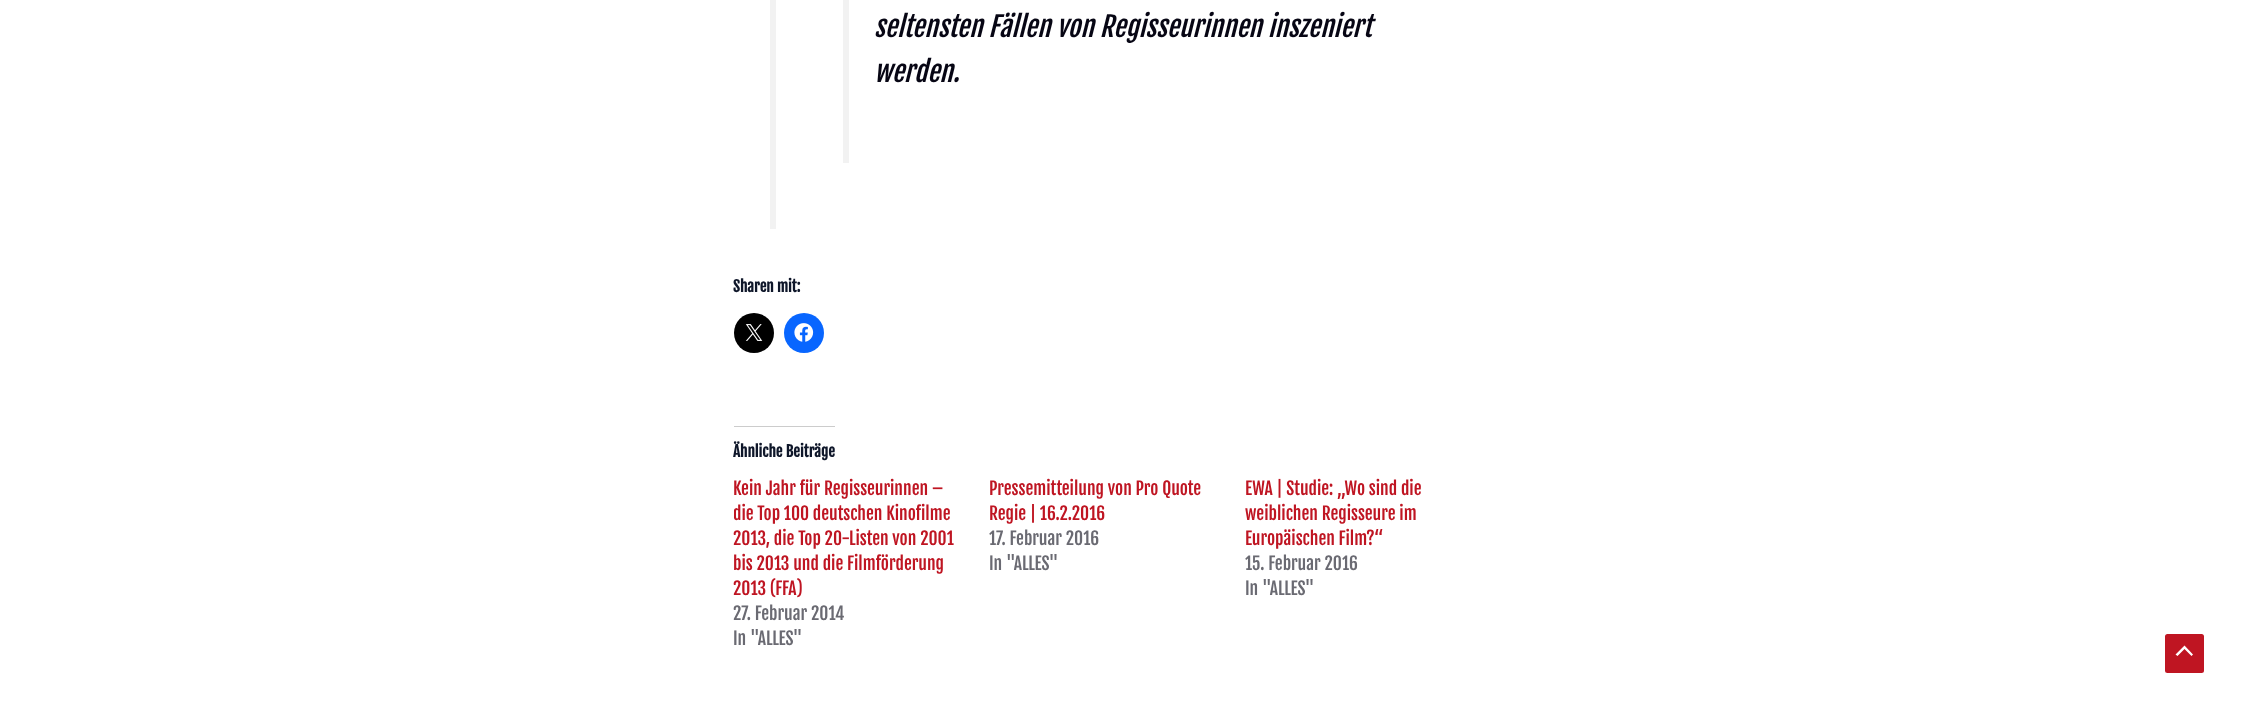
<svg xmlns="http://www.w3.org/2000/svg" xmlns:xlink="http://www.w3.org/1999/xlink" width="2241" height="710" viewBox="0 0 2241 710">
<style>
.cls-1{font:italic 27.25px Fjalla One;fill:#070614}
.cls-2{font:bold 15px Fjalla One;fill:#0f172a}
.cls-3{font:17.5px Fjalla One;fill:#bf1522}
.cls-4{font:17.5px Fjalla One;fill:#6a6a72}
</style>
<defs>
<clipPath id="clip1"><rect x="734" y="476" width="230" height="125"/></clipPath>
</defs>
<rect width="100%" height="100%" fill="#ffffff"/>
<rect fill="#f2f2f2" x="770" y="0" width="6" height="229"/>
<rect fill="#f2f2f2" x="843" y="0" width="6" height="163"/>
<circle fill="#000000" cx="754" cy="333" r="20"/>
<image xlink:href="image0.png" x="745" y="324" width="18" height="17"/>
<circle fill="#0866ff" cx="804" cy="333" r="20"/>
<image xlink:href="image1.png" x="794" y="323" width="20" height="19"/>
<rect fill="#cccccc" x="734" y="426" width="101" height="1"/>
<rect fill="#bf1522" x="2165" y="634" width="39" height="39" rx="2.5"/>
<path fill="#ffffff" d="M2193 654.5L2184.5 645.5L2175.5 654.5L2177.5 656L2184.5 649L2191.5 656Z"/>
<text class="cls-1"><tspan x="874" y="37">seltensten Fällen von Regisseurinnen inszeniert</tspan><tspan x="874" y="82">werden.</tspan></text>
<text class="cls-2" x="733" y="292">Sharen mit:</text>
<text class="cls-2" x="733" y="457">Ähnliche Beiträge</text>
<text class="cls-3" x="733" y="495">Kein Jahr für Regisseurinnen –</text>
<g clip-path="url(#clip1)">
<text class="cls-3" x="733" y="520">die Top 100 deutschen Kinofilme</text>
</g>
<text class="cls-3"><tspan x="733" y="545">2013, die Top 20-Listen von 2001</tspan><tspan x="733" y="570">bis 2013 und die Filmförderung</tspan><tspan x="733" y="595">2013 (FFA)</tspan></text>
<text class="cls-4"><tspan x="733" y="620">27. Februar 2014</tspan><tspan x="733" y="645">In "ALLES"</tspan></text>
<text class="cls-3"><tspan x="989" y="495">Pressemitteilung von Pro Quote</tspan><tspan x="989" y="520">Regie | 16.2.2016</tspan></text>
<text class="cls-4"><tspan x="989" y="545">17. Februar 2016</tspan><tspan x="989" y="570">In "ALLES"</tspan></text>
<text class="cls-3"><tspan x="1245" y="495">EWA | Studie: „Wo sind die</tspan><tspan x="1245" y="520">weiblichen Regisseure im</tspan><tspan x="1245" y="545">Europäischen Film?“</tspan></text>
<text class="cls-4"><tspan x="1245" y="570">15. Februar 2016</tspan><tspan x="1245" y="595">In "ALLES"</tspan></text>
</svg>
